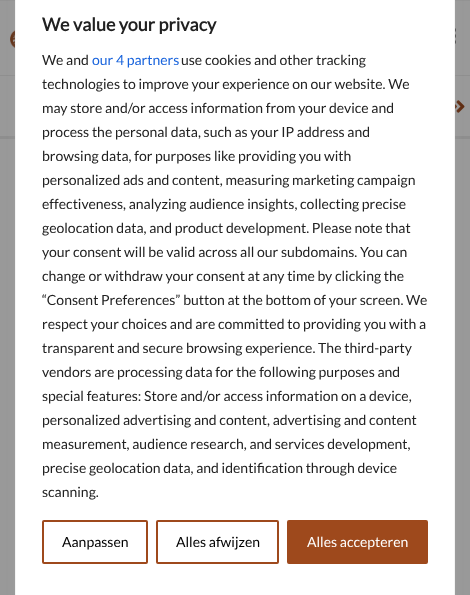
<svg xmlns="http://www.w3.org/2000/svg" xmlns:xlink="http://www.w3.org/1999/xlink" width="470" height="595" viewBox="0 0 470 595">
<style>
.cls-1{font:bold 18px Lato;fill:#212121}
.cls-2{font:14px Lato;fill:#212121}
.cls-3{font:14px Lato;fill:#1863dc}
.cls-4{font:14px Lato;fill:#000000}
.cls-5{font:14px Lato;fill:#ffffff}
</style>
<rect width="100%" height="100%" fill="#999999"/>
<rect fill="#939393" x="0" y="0" width="470" height="1"/>
<rect fill="#8f8f8f" x="0" y="75" width="470" height="1"/>
<image xlink:href="image0.png" x="10" y="30" width="5" height="18"/>
<image xlink:href="image1.png" x="455" y="28" width="1" height="16"/>
<image xlink:href="image2.png" x="455" y="100" width="10" height="13"/>
<rect fill="#8e8e8e" x="0" y="136" width="470" height="3"/>
<rect fill="#acabab" fill-opacity="0.3" filter="blur(5px)" x="15" y="-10" width="440" height="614" rx="6"/>
<rect fill="#ffffff" stroke="#f4f4f4" x="15.5" y="-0.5" width="439" height="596"/>
<rect fill="none" stroke="#9e491c" stroke-width="2" x="43" y="521" width="104" height="42" rx="1"/>
<rect fill="none" stroke="#9e491c" stroke-width="2" x="157" y="521" width="121" height="42" rx="1"/>
<rect fill="#9e491c" stroke="#9e491c" stroke-width="2" x="288" y="521" width="139" height="42" rx="1"/>
<text class="cls-1" x="42" y="31">We value your privacy</text>
<text class="cls-2" x="42" y="65">We and</text>
<text class="cls-3" x="92" y="65">our 4 partners</text>
<text class="cls-2" x="181" y="65">use cookies and other tracking</text>
<text class="cls-2"><tspan x="42" y="89">technologies to improve your experience on our website. We</tspan><tspan x="42" y="113">may store and/or access information from your device and</tspan><tspan x="42" y="137">process the personal data, such as your IP address and</tspan><tspan x="42" y="161">browsing data, for purposes like providing you with</tspan><tspan x="42" y="185">personalized ads and content, measuring marketing campaign</tspan><tspan x="42" y="209">effectiveness, analyzing audience insights, collecting precise</tspan><tspan x="42" y="233">geolocation data, and product development. Please note that</tspan><tspan x="42" y="257">your consent will be valid across all our subdomains. You can</tspan><tspan x="42" y="281">change or withdraw your consent at any time by clicking the</tspan><tspan x="42" y="305">“Consent Preferences” button at the bottom of your screen. We</tspan><tspan x="42" y="329">respect your choices and are committed to providing you with a</tspan><tspan x="42" y="353">transparent and secure browsing experience. The third-party</tspan><tspan x="42" y="377">vendors are processing data for the following purposes and</tspan><tspan x="42" y="401">special features: Store and/or access information on a device,</tspan><tspan x="42" y="425">personalized advertising and content, advertising and content</tspan><tspan x="42" y="449">measurement, audience research, and services development,</tspan><tspan x="42" y="473">precise geolocation data, and identification through device</tspan><tspan x="42" y="497">scanning.</tspan></text>
<text class="cls-4" x="62" y="547">Aanpassen</text>
<text class="cls-4" x="176" y="547">Alles afwijzen</text>
<text class="cls-5" x="307" y="547">Alles accepteren</text>
</svg>
